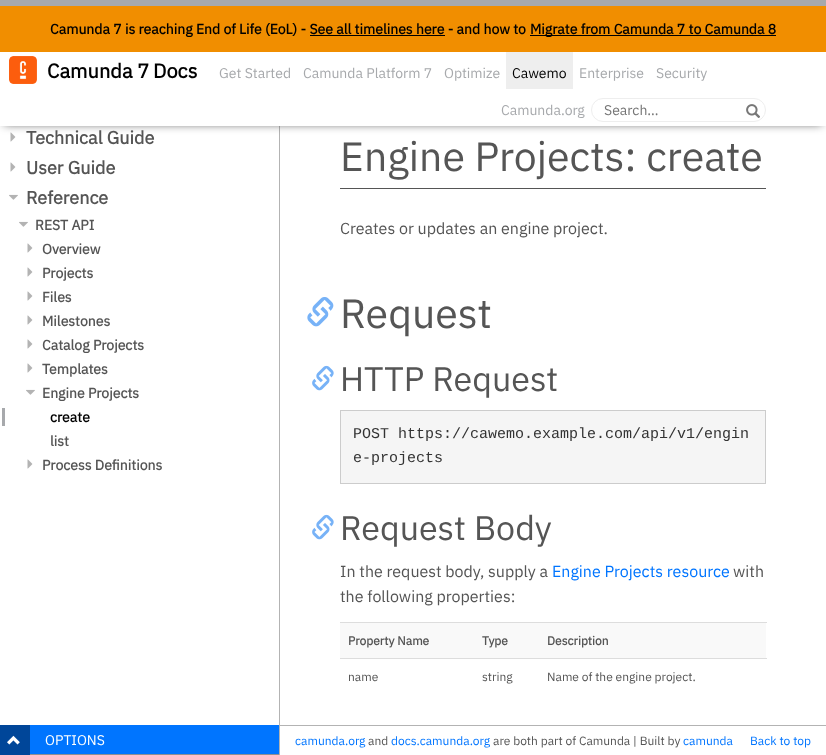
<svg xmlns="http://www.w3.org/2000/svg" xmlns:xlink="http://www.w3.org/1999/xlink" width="826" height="755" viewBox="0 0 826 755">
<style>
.cls-1{font:bold 14px IBM Plex Sans;fill:#000000}
.cls-2{font:bold 20px IBM Plex Sans;fill:#000000}
.cls-3{font:14px IBM Plex Sans;fill:#a7a9ac}
.cls-4{font:14px IBM Plex Sans;fill:#000000}
.cls-5{font:14px IBM Plex Sans;fill:#757575}
.cls-6{font:bold 18px IBM Plex Sans;fill:#555555}
.cls-7{font:bold 14px IBM Plex Sans;fill:#555555}
.cls-8{font:14px IBM Plex Sans;fill:#ffffff}
.cls-9{font:41px IBM Plex Sans;fill:#555555}
.cls-10{font:16px IBM Plex Sans;fill:#555555}
.cls-11{font:34px IBM Plex Sans;fill:#555555}
.cls-12{font:15px Liberation Mono;fill:#333333}
.cls-13{font:16px IBM Plex Sans;fill:#0075ff}
.cls-14{font:bold 12px IBM Plex Sans;fill:#555555}
.cls-15{font:12px IBM Plex Sans;fill:#555555}
.cls-16{font:12px IBM Plex Sans;fill:#0075ff}
</style>
<rect width="100%" height="100%" fill="#ffffff"/>
<rect fill="#b3b3b3" x="279" y="126" width="1" height="629"/>
<image xlink:href="image2.png" x="10" y="132" width="6" height="10"/>
<rect fill="#555555" filter="blur(5px)" x="4" y="6" width="818" height="118"/>
<rect fill="#ffffff" x="0" y="52" width="826" height="74"/>
<rect fill="#a7a9ac" x="0" y="0" width="826" height="6"/>
<rect fill="#f18e00" x="0" y="6" width="826" height="46"/>
<rect fill="#000000" x="530" y="35" width="246" height="1"/>
<rect fill="#000000" x="310" y="35" width="135" height="1"/>
<image xlink:href="image0.png" x="9" y="56" width="28" height="28"/>
<rect fill="#eeeeee" x="506" y="52" width="67" height="37"/>
<rect fill="none" stroke="#eeeeee" x="591.5" y="98.5" width="174" height="23" rx="11.5"/>
<image xlink:href="image1.png" x="746" y="104" width="14" height="14"/>
<image xlink:href="image2.png" x="10" y="162" width="6" height="10"/>
<image xlink:href="image3.png" x="9" y="194" width="9" height="6"/>
<image xlink:href="image3.png" x="19" y="221" width="9" height="6"/>
<image xlink:href="image2.png" x="27" y="243" width="6" height="10"/>
<image xlink:href="image2.png" x="27" y="267" width="6" height="10"/>
<image xlink:href="image2.png" x="27" y="291" width="6" height="10"/>
<image xlink:href="image2.png" x="27" y="315" width="6" height="10"/>
<image xlink:href="image2.png" x="27" y="339" width="6" height="10"/>
<image xlink:href="image2.png" x="27" y="363" width="6" height="10"/>
<image xlink:href="image3.png" x="26" y="389" width="9" height="6"/>
<rect fill="#a7a9ac" x="2" y="408" width="3" height="18"/>
<image xlink:href="image2.png" x="27" y="459" width="6" height="10"/>
<rect fill="#0075ff" x="30" y="725" width="249" height="29"/>
<rect fill="#8d8f93" x="30" y="754" width="249" height="1"/>
<rect fill="#004699" x="0" y="725" width="30" height="30"/>
<image xlink:href="image4.png" x="7" y="735" width="13" height="10"/>
<rect fill="#555555" x="340" y="188" width="426" height="1"/>
<image xlink:href="image5.png" x="307" y="297" width="27" height="30"/>
<image xlink:href="image6.png" x="312" y="365" width="22" height="26"/>
<rect fill="#f5f5f5" stroke="#cccccc" x="340.5" y="410.5" width="425" height="73"/>
<image xlink:href="image6.png" x="312" y="514" width="22" height="26"/>
<rect fill="#f9f9f9" x="340" y="623" width="426" height="35"/>
<rect fill="#dddddd" x="340" y="622" width="427" height="1"/>
<rect fill="#dddddd" x="340" y="658" width="427" height="1"/>
<rect fill="#b3b3b3" x="280" y="725" width="546" height="1"/>
<text class="cls-1" x="50" y="34">Camunda 7 is reaching End of Life (EoL) - See all timelines here - and how to</text>
<text class="cls-1" x="530" y="34">Migrate from Camunda 7 to Camunda 8</text>
<text class="cls-2" x="47" y="78">Camunda 7</text>
<text class="cls-2" x="153" y="78">Docs</text>
<text class="cls-3" x="219" y="78">Get Started</text>
<text class="cls-3" x="303" y="78">Camunda Platform 7</text>
<text class="cls-3" x="444" y="78">Optimize</text>
<text class="cls-4" x="512" y="78">Cawemo</text>
<text class="cls-3" x="579" y="78">Enterprise</text>
<text class="cls-3" x="656" y="78">Security</text>
<text class="cls-3" x="501" y="115">Camunda.org</text>
<text class="cls-5" x="604" y="115">Search…</text>
<text class="cls-6"><tspan x="26" y="144">Technical Guide</tspan><tspan x="26" y="174">User Guide</tspan><tspan x="26" y="204">Reference</tspan></text>
<text class="cls-7" x="35" y="230">REST API</text>
<text class="cls-7"><tspan x="42" y="254">Overview</tspan><tspan x="42" y="278">Projects</tspan><tspan x="42" y="302">Files</tspan><tspan x="42" y="326">Milestones</tspan><tspan x="42" y="350">Catalog Projects</tspan><tspan x="42" y="374">Templates</tspan><tspan x="42" y="398">Engine Projects</tspan></text>
<text class="cls-1" x="50" y="422">create</text>
<text class="cls-7" x="50" y="446">list</text>
<text class="cls-7" x="42" y="470">Process Definitions</text>
<text class="cls-8" x="45" y="745">OPTIONS</text>
<text class="cls-9" x="340" y="171">Engine Projects: create</text>
<text class="cls-10" x="340" y="234">Creates or updates an engine project.</text>
<text class="cls-9" x="340" y="328">Request</text>
<text class="cls-11" x="340" y="391">HTTP Request</text>
<text class="cls-12"><tspan x="353" y="438">POST https://cawemo.example.com/api/v1/engin</tspan><tspan x="353" y="462">e-projects</tspan></text>
<text class="cls-11" x="340" y="540">Request Body</text>
<text class="cls-10" x="340" y="577">In the request body, supply a</text>
<text class="cls-13" x="552" y="577">Engine Projects resource</text>
<text class="cls-10" x="733" y="577">with</text>
<text class="cls-10" x="340" y="602">the following properties:</text>
<text class="cls-14" x="348" y="645">Property Name</text>
<text class="cls-14" x="482" y="645">Type</text>
<text class="cls-14" x="547" y="645">Description</text>
<text class="cls-15" x="348" y="681">name</text>
<text class="cls-15" x="482" y="681">string</text>
<text class="cls-15" x="547" y="681">Name of the engine project.</text>
<text class="cls-16" x="295" y="745">camunda.org</text>
<text class="cls-15" x="368" y="745">and</text>
<text class="cls-16" x="391" y="745">docs.camunda.org</text>
<text class="cls-15" x="493" y="745">are both part of Camunda | Built by</text>
<text class="cls-16" x="683" y="745">camunda</text>
<text class="cls-16" x="750" y="745">Back to top</text>
</svg>
